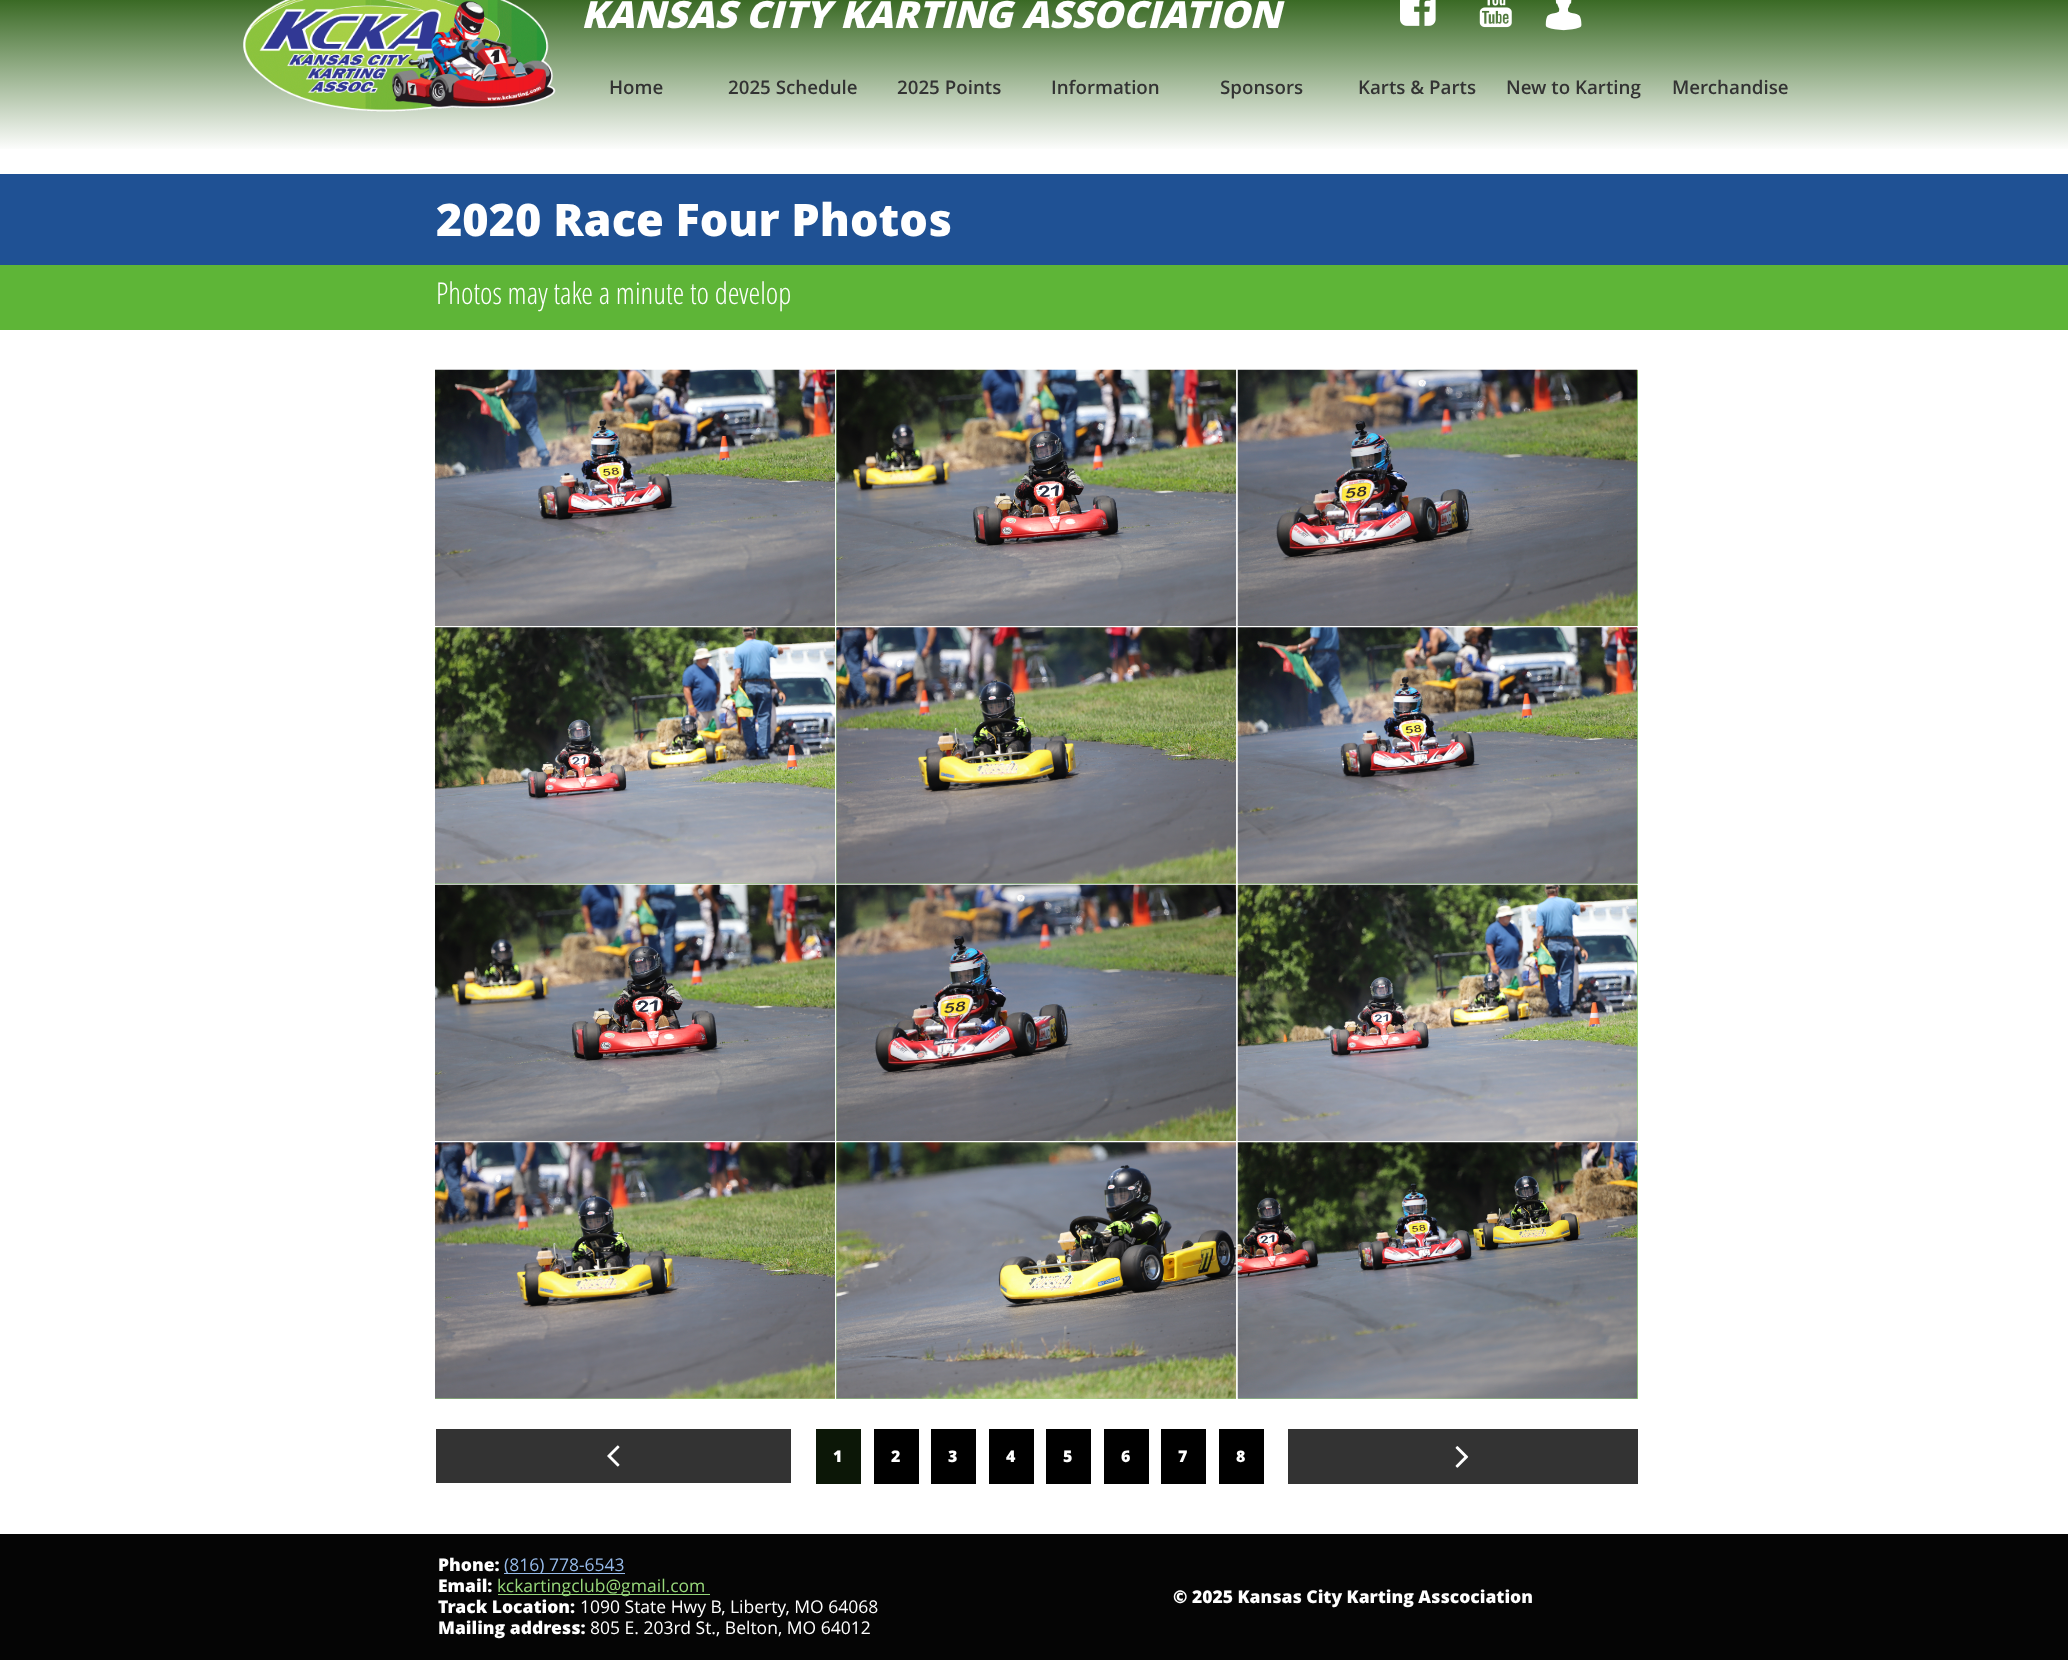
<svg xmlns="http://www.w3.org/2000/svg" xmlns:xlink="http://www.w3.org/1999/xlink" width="2068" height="1660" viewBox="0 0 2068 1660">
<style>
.cls-1{font:italic 800 37.5px Open Sans;fill:#ffffff}
.cls-2{font:600 18.75px Open Sans;fill:#333333}
.cls-3{font:800 45px Open Sans;fill:#ffffff}
.cls-4{font:300 30px Open Sans;fill:#ffffff}
.cls-5{font:800 16px Open Sans;fill:#ffffff}
.cls-6{font:800 17.5px Open Sans;fill:#ffffff}
.cls-7{font:17.5px Open Sans;fill:#96bae9}
.cls-8{font:17.5px Open Sans;fill:#97d77a}
.cls-9{font:17.5px Open Sans;fill:#ffffff}
</style>
<defs>
<linearGradient id="g1" gradientUnits="userSpaceOnUse" x1="1034" y1="-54" x2="1034" y2="174"><stop offset="0" stop-color="#35661f"/><stop offset="0.22" stop-color="#35661f"/><stop offset="0.9" stop-color="#ffffff"/><stop offset="1" stop-color="#ffffff"/></linearGradient>
</defs>
<rect width="100%" height="100%" fill="#ffffff"/>
<rect fill="url(#g1)" x="0" y="0" width="2068" height="149"/>
<image xlink:href="image0.png" x="243" y="0" width="313" height="112"/>
<image xlink:href="image1.png" x="1400" y="0" width="36" height="26"/>
<image xlink:href="image2.png" x="1479" y="0" width="33" height="28"/>
<image xlink:href="image3.png" x="1545" y="0" width="37" height="31"/>
<rect fill="#1f5194" x="0" y="174" width="2068" height="91"/>
<rect fill="#5eb537" x="0" y="265" width="2068" height="65"/>
<image xlink:href="image4.png" x="435" y="369" width="400" height="257"/>
<rect fill="#97d77a" x="836" y="370" width="1" height="256"/>
<image xlink:href="image5.png" x="836" y="369" width="401" height="257"/>
<rect fill="#97d77a" x="1637" y="370" width="1" height="256"/>
<image xlink:href="image6.png" x="1237" y="369" width="401" height="257"/>
<rect fill="#97d77a" x="435" y="883" width="400" height="1"/>
<image xlink:href="image7.png" x="435" y="627" width="400" height="257"/>
<rect fill="#97d77a" x="836" y="628" width="400" height="256"/>
<image xlink:href="image8.png" x="836" y="627" width="401" height="257"/>
<rect fill="#97d77a" x="1238" y="628" width="400" height="256"/>
<image xlink:href="image9.png" x="1237" y="627" width="401" height="257"/>
<image xlink:href="image10.png" x="435" y="884" width="400" height="257"/>
<rect fill="#97d77a" x="836" y="885" width="1" height="256"/>
<image xlink:href="image11.png" x="836" y="884" width="401" height="257"/>
<rect fill="#97d77a" x="1637" y="885" width="1" height="256"/>
<image xlink:href="image12.png" x="1237" y="884" width="401" height="257"/>
<rect fill="#97d77a" x="435" y="1398" width="400" height="1"/>
<image xlink:href="image13.png" x="435" y="1142" width="400" height="257"/>
<rect fill="#97d77a" x="836" y="1143" width="400" height="256"/>
<image xlink:href="image14.png" x="836" y="1142" width="401" height="257"/>
<rect fill="#97d77a" x="1238" y="1143" width="400" height="256"/>
<image xlink:href="image15.png" x="1237" y="1142" width="401" height="257"/>
<rect fill="#333333" x="436" y="1429" width="355" height="54"/>
<image xlink:href="image16.png" x="607" y="1445" width="13" height="22"/>
<rect fill="#0c1707" x="816" y="1429" width="45" height="55"/>
<rect fill="#000000" x="874" y="1429" width="45" height="55"/>
<rect fill="#000000" x="931" y="1429" width="45" height="55"/>
<rect fill="#000000" x="989" y="1429" width="45" height="55"/>
<rect fill="#000000" x="1046" y="1429" width="45" height="55"/>
<rect fill="#000000" x="1104" y="1429" width="45" height="55"/>
<rect fill="#000000" x="1161" y="1429" width="45" height="55"/>
<rect fill="#000000" x="1219" y="1429" width="45" height="55"/>
<rect fill="#333333" x="1288" y="1429" width="350" height="55"/>
<image xlink:href="image17.png" x="1455" y="1446" width="14" height="22"/>
<rect fill="#050505" x="0" y="1534" width="2068" height="126"/>
<rect fill="#96bae9" x="504" y="1573" width="121" height="1"/>
<rect fill="#97d77a" x="498" y="1594" width="212" height="1"/>
<text class="cls-1" x="581" y="28">KANSAS CITY KARTING ASSOCIATION</text>
<text class="cls-2" x="609" y="94">Home</text>
<text class="cls-2" x="728" y="94">2025 Schedule</text>
<text class="cls-2" x="897" y="94">2025 Points</text>
<text class="cls-2" x="1051" y="94">Information</text>
<text class="cls-2" x="1220" y="94">Sponsors</text>
<text class="cls-2" x="1358" y="94">Karts &amp; Parts</text>
<text class="cls-2" x="1506" y="94">New to Karting</text>
<text class="cls-2" x="1672" y="94">Merchandise</text>
<text class="cls-3" x="436" y="236">2020 Race Four Photos</text>
<text class="cls-4" x="436" y="304">Photos may take a minute to develop</text>
<text class="cls-5" x="833" y="1462">1</text>
<text class="cls-5" x="891" y="1462">2</text>
<text class="cls-5" x="948" y="1462">3</text>
<text class="cls-5" x="1006" y="1462">4</text>
<text class="cls-5" x="1063" y="1462">5</text>
<text class="cls-5" x="1121" y="1462">6</text>
<text class="cls-5" x="1178" y="1462">7</text>
<text class="cls-5" x="1236" y="1462">8</text>
<text class="cls-6" x="438" y="1571">Phone:</text>
<text class="cls-7" x="504" y="1571">(816) 778-6543</text>
<text class="cls-6" x="438" y="1592">Email:</text>
<text class="cls-8" x="497" y="1592">kckartingclub@gmail.com</text>
<text class="cls-6" x="438" y="1613">Track Location:</text>
<text class="cls-9" x="580" y="1613">1090 State Hwy B, Liberty, MO 64068</text>
<text class="cls-6" x="438" y="1634">Mailing address:</text>
<text class="cls-9" x="590" y="1634">805 E. 203rd St., Belton, MO 64012</text>
<text class="cls-6" x="1173" y="1603">© 2025 Kansas City Karting Asscociation</text>
</svg>
